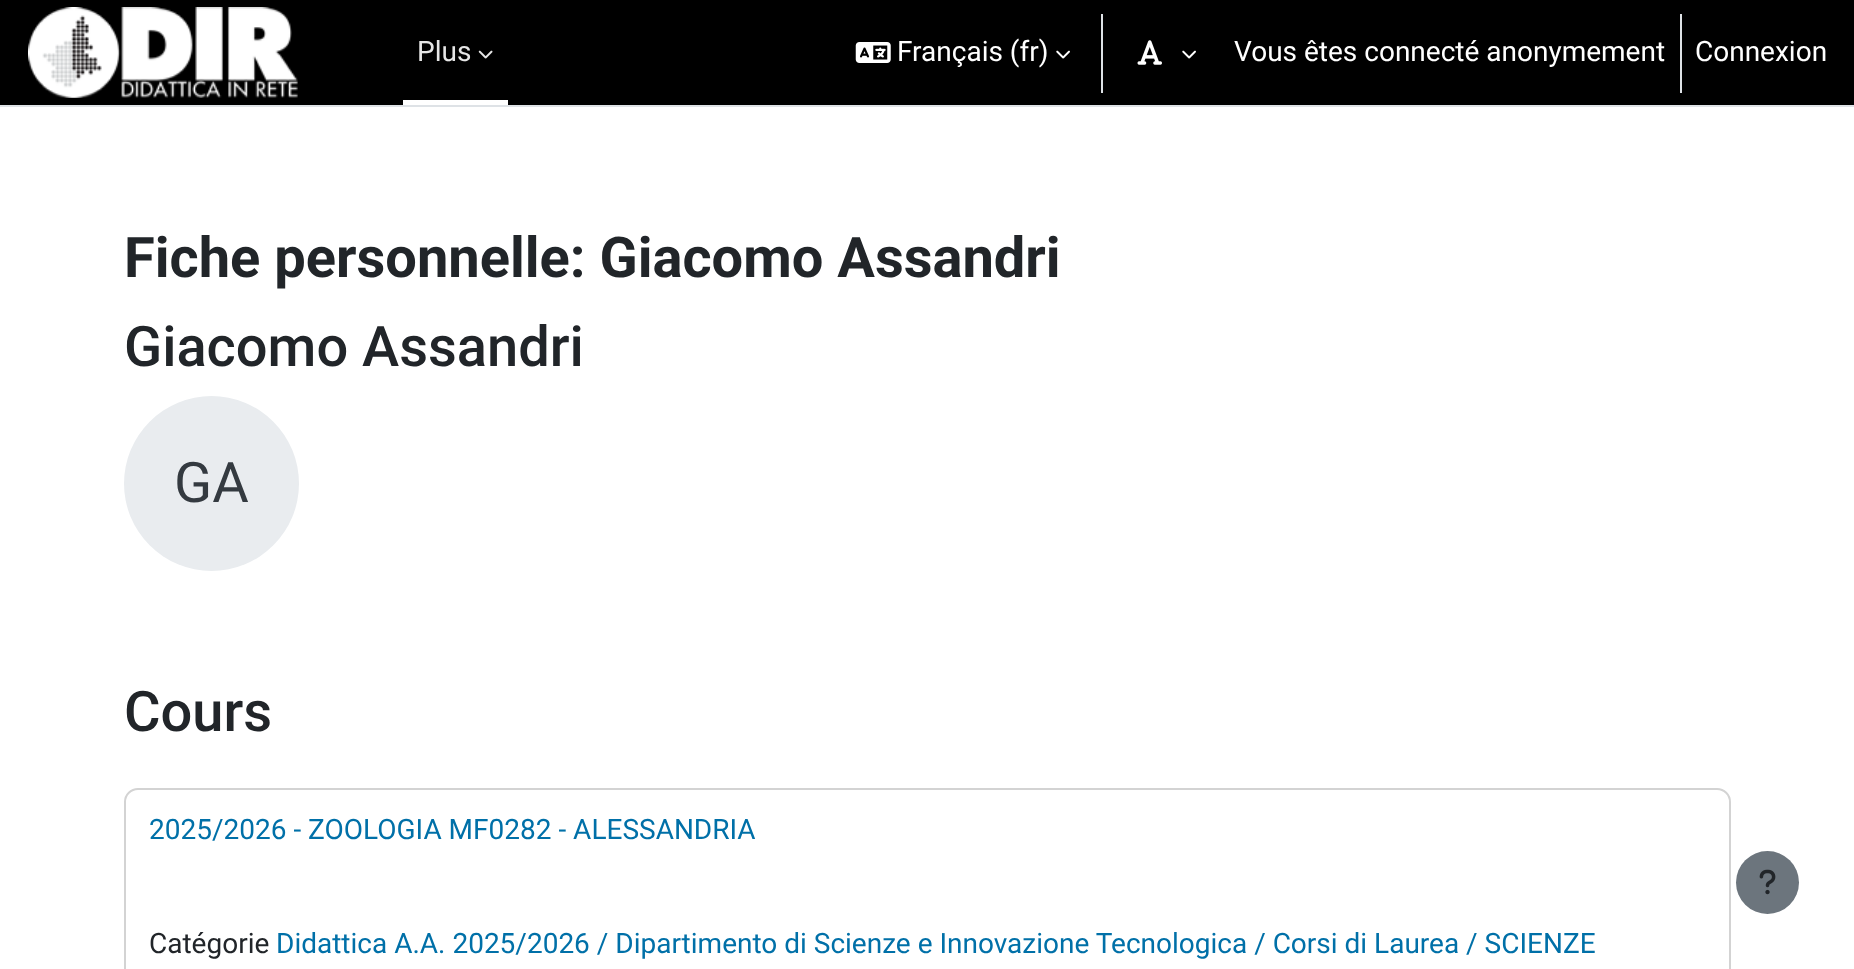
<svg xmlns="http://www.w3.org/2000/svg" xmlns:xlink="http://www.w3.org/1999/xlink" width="1854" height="969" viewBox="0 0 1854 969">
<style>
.cls-1{font:28px Roboto;fill:#e6e6e6}
.cls-2{font:28px Roboto;fill:#ffffff}
.cls-3{font:bold 56px Roboto;fill:#212529}
.cls-4{font:500 56px Roboto;fill:#212529}
.cls-5{font:56px Roboto;fill:#343a40}
.cls-6{font:28px Roboto;fill:#0070a8}
.cls-7{font:28px Roboto;fill:#212529}
</style>
<rect width="100%" height="100%" fill="#ffffff"/>
<rect fill="#000000" x="0" y="0" width="1854" height="105"/>
<rect fill="#dee2e6" x="0" y="105" width="1854" height="2"/>
<image xlink:href="image0.png" x="28" y="7" width="270" height="91"/>
<rect fill="#ffffff" x="403" y="100" width="105" height="5"/>
<image xlink:href="image1.png" x="478" y="50" width="15" height="9"/>
<image xlink:href="image2.png" x="855" y="42" width="36" height="21"/>
<image xlink:href="image3.png" x="1056" y="50" width="14" height="9"/>
<rect fill="#dee2e6" x="1101" y="14" width="2" height="79"/>
<image xlink:href="image4.png" x="1137" y="40" width="25" height="25"/>
<image xlink:href="image3.png" x="1182" y="50" width="14" height="9"/>
<rect fill="#dee2e6" x="1680" y="14" width="2" height="79"/>
<circle fill="#e9ecef" cx="211.5" cy="483.5" r="87.5"/>
<rect fill="none" stroke="#d3d3d3" stroke-width="2" x="125" y="789" width="1605" height="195" rx="13"/>
<circle fill="#6c757d" cx="1767.5" cy="882.5" r="31.5"/>
<image xlink:href="image5.png" x="1759" y="869" width="17" height="26"/>
<text class="cls-1" x="417" y="61">Plus</text>
<text class="cls-2" x="897" y="61">Français (fr)</text>
<text class="cls-2" x="1234" y="61">Vous êtes connecté anonymement</text>
<text class="cls-2" x="1695" y="61">Connexion</text>
<text class="cls-3" x="124" y="277">Fiche personnelle: Giacomo Assandri</text>
<text class="cls-4" x="124" y="366">Giacomo Assandri</text>
<text class="cls-5" x="174" y="502">GA</text>
<text class="cls-4" x="124" y="731">Cours</text>
<text class="cls-6" x="149" y="839">2025/2026 - ZOOLOGIA MF0282 - ALESSANDRIA</text>
<text class="cls-7" x="149" y="953">Catégorie</text>
<text class="cls-6" x="276" y="953">Didattica A.A. 2025/2026 / Dipartimento di Scienze e Innovazione Tecnologica / Corsi di Laurea / SCIENZE</text>
</svg>
